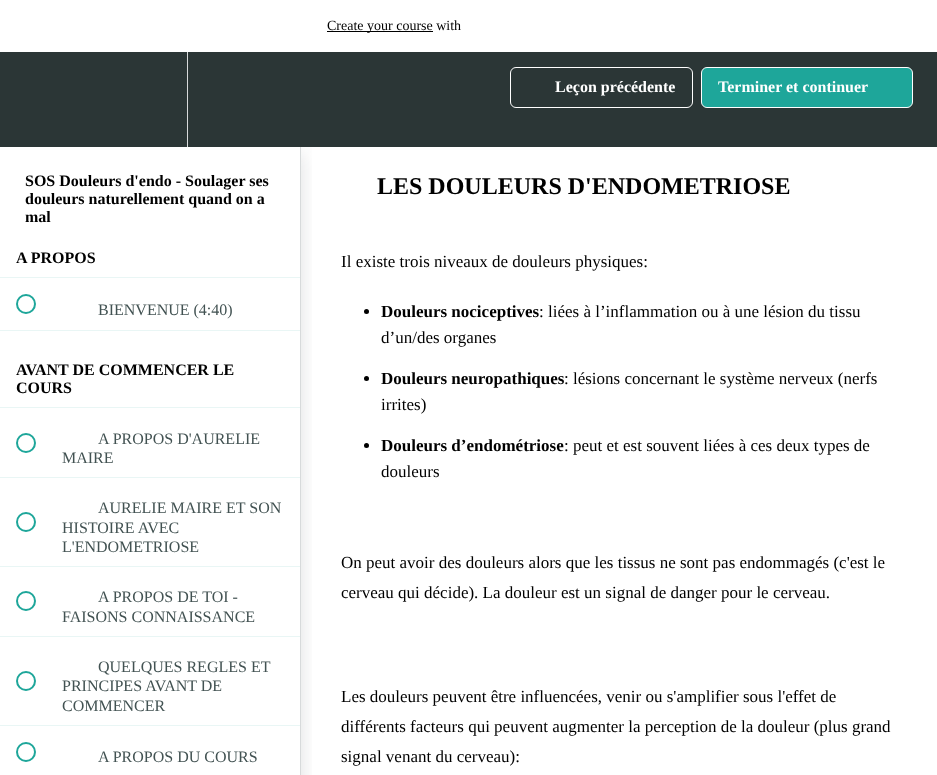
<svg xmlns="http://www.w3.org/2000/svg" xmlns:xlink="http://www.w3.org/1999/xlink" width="937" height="775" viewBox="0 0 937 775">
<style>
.cls-1{font:14px Liberation Serif;fill:#000000}
.cls-2{font:bold 16px Liberation Serif;fill:#ffffff}
.cls-3{font:bold 16px Liberation Serif;fill:#000000}
.cls-4{font:16px Liberation Serif;fill:#425252}
.cls-5{font:bold 24px Liberation Serif;fill:#000000}
.cls-6{font:17px Liberation Serif;fill:#000000}
.cls-7{font:bold 17px Liberation Serif;fill:#000000}
</style>
<defs>
<clipPath id="clip1"><rect x="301" y="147" width="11" height="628"/></clipPath>
</defs>
<rect width="100%" height="100%" fill="#ffffff"/>
<g clip-path="url(#clip1)">
<rect fill="#20272d" fill-opacity="0.15" filter="blur(10px)" x="0" y="153" width="301" height="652"/>
</g>
<rect fill="#2b3636" x="0" y="52" width="937" height="95"/>
<rect fill="#000000" x="327" y="31" width="106" height="1"/>
<rect fill="#d7dadb" x="187" y="52" width="1" height="95"/>
<rect fill="none" stroke="#ffffff" x="510.5" y="67.5" width="182" height="40" rx="5.5"/>
<rect fill="#1ea69a" stroke="#ffffff" x="701.5" y="67.5" width="211" height="40" rx="5.5"/>
<rect fill="#d7dadb" x="300" y="147" width="1" height="628"/>
<rect fill="#e9f6f5" x="0" y="277" width="300" height="1"/>
<rect fill="#e9f6f5" x="0" y="330" width="300" height="1"/>
<circle fill="none" stroke="#1ea69a" stroke-width="2" cx="26" cy="304" r="9"/>
<rect fill="#e9f6f5" x="0" y="407" width="300" height="1"/>
<rect fill="#e9f6f5" x="0" y="477" width="300" height="1"/>
<circle fill="none" stroke="#1ea69a" stroke-width="2" cx="26" cy="443" r="9"/>
<rect fill="#e9f6f5" x="0" y="566" width="300" height="1"/>
<circle fill="none" stroke="#1ea69a" stroke-width="2" cx="26" cy="522" r="9"/>
<rect fill="#e9f6f5" x="0" y="636" width="300" height="1"/>
<circle fill="none" stroke="#1ea69a" stroke-width="2" cx="26" cy="601" r="9"/>
<rect fill="#e9f6f5" x="0" y="725" width="300" height="1"/>
<circle fill="none" stroke="#1ea69a" stroke-width="2" cx="26" cy="681" r="9"/>
<circle fill="none" stroke="#1ea69a" stroke-width="2" cx="26" cy="752" r="9"/>
<circle fill="#000000" cx="366.5" cy="311.5" r="2.5"/>
<circle fill="#000000" cx="366.5" cy="378.5" r="2.5"/>
<circle fill="#000000" cx="366.5" cy="445.5" r="2.5"/>
<text class="cls-1" x="327" y="30">Create your course with</text>
<text class="cls-2" x="555" y="92">Leçon précédente</text>
<text class="cls-2" x="718" y="92">Terminer et continuer</text>
<text class="cls-3"><tspan x="25" y="186">SOS Douleurs d'endo - Soulager ses</tspan><tspan x="25" y="204">douleurs naturellement quand on a</tspan><tspan x="25" y="222">mal</tspan></text>
<text class="cls-3" x="16" y="263">A PROPOS</text>
<text class="cls-4" x="98" y="315">BIENVENUE (4:40)</text>
<text class="cls-3"><tspan x="16" y="375">AVANT DE COMMENCER LE</tspan><tspan x="16" y="393">COURS</tspan></text>
<text class="cls-4" x="98" y="444">A PROPOS D'AURELIE</text>
<text class="cls-4" x="62" y="463">MAIRE</text>
<text class="cls-4" x="98" y="513">AURELIE MAIRE ET SON</text>
<text class="cls-4"><tspan x="62" y="533">HISTOIRE AVEC</tspan><tspan x="62" y="552">L'ENDOMETRIOSE</tspan></text>
<text class="cls-4" x="98" y="602">A PROPOS DE TOI -</text>
<text class="cls-4" x="62" y="622">FAISONS CONNAISSANCE</text>
<text class="cls-4" x="98" y="672">QUELQUES REGLES ET</text>
<text class="cls-4"><tspan x="62" y="691">PRINCIPES AVANT DE</tspan><tspan x="62" y="711">COMMENCER</tspan></text>
<text class="cls-4" x="98" y="762">A PROPOS DU COURS</text>
<text class="cls-5" x="377" y="194">LES DOULEURS D'ENDOMETRIOSE</text>
<text class="cls-6" x="341" y="267">Il existe trois niveaux de douleurs physiques:</text>
<text class="cls-7" x="381" y="317">Douleurs nociceptives</text>
<text class="cls-6" x="539" y="317">: liées à l’inflammation ou à une lésion du tissu</text>
<text class="cls-6" x="381" y="343">d’un/des organes</text>
<text class="cls-7" x="381" y="384">Douleurs neuropathiques</text>
<text class="cls-6" x="564" y="384">: lésions concernant le système nerveux (nerfs</text>
<text class="cls-6" x="381" y="410">irrites)</text>
<text class="cls-7" x="381" y="451">Douleurs d’endométriose</text>
<text class="cls-6" x="564" y="451">: peut et est souvent liées à ces deux types de</text>
<text class="cls-6" x="381" y="477">douleurs</text>
<text class="cls-6"><tspan x="341" y="568">On peut avoir des douleurs alors que les tissus ne sont pas endommagés (c'est le</tspan><tspan x="341" y="598">cerveau qui décide). La douleur est un signal de danger pour le cerveau.</tspan></text>
<text class="cls-6"><tspan x="341" y="702">Les douleurs peuvent être influencées, venir ou s'amplifier sous l'effet de</tspan><tspan x="341" y="732">différents facteurs qui peuvent augmenter la perception de la douleur (plus grand</tspan><tspan x="341" y="762">signal venant du cerveau):</tspan></text>
</svg>
